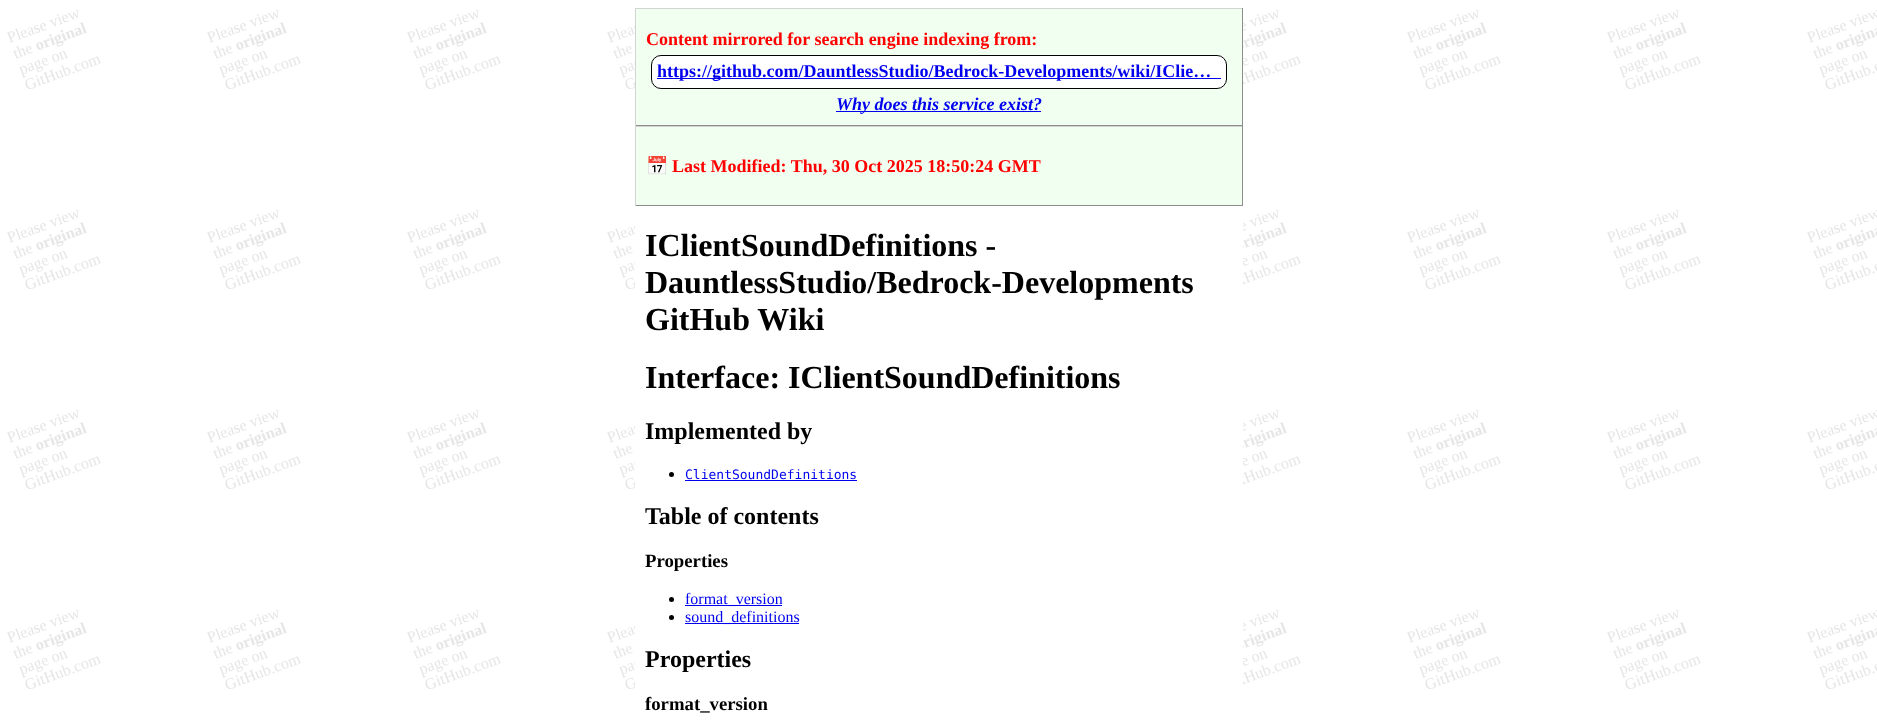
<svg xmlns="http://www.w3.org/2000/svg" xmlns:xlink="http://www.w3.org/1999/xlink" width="1877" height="726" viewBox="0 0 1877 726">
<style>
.cls-1{font:bold 18px Liberation Serif;fill:#ff0000}
.cls-2{font:bold 18px Liberation Serif;fill:#0000ee}
.cls-3{font:italic bold 18px Liberation Serif;fill:#0000ee}
.cls-4{font:bold 18px Noto Color Emoji;fill:#ff0000}
.cls-5{font:bold 32px Liberation Serif;fill:#000000}
.cls-6{font:bold 24px Liberation Serif;fill:#000000}
.cls-7{font:13px DejaVu Sans Mono;fill:#0000ee}
.cls-8{font:bold 18.75px Liberation Serif;fill:#000000}
.cls-9{font:16px Liberation Serif;fill:#0000ee}
</style>
<rect width="100%" height="100%" fill="#ffffff"/>
<image xlink:href="image0.png" x="6" y="10" width="1871" height="679"/>
<rect fill="#ffffff" x="635" y="210" width="608" height="479"/>
<rect fill="#f0fff0" x="636" y="9" width="606" height="116"/>
<rect fill="#d3d3d3" x="635" y="8" width="608" height="1"/>
<rect fill="#8d8d8d" x="1242" y="8" width="1" height="118"/>
<rect fill="#8d8d8d" x="635" y="125" width="608" height="1"/>
<rect fill="#d3d3d3" x="635" y="8" width="1" height="118"/>
<rect fill="#ffffff" stroke="#000000" x="651.5" y="55.5" width="575" height="33" rx="9.5"/>
<rect fill="#0000ee" x="657" y="78" width="564" height="1"/>
<rect fill="#0000ee" x="836" y="111" width="205" height="1"/>
<rect fill="#f0fff0" x="636" y="127" width="606" height="78"/>
<rect fill="#d3d3d3" x="635" y="126" width="608" height="1"/>
<rect fill="#8d8d8d" x="1242" y="126" width="1" height="80"/>
<rect fill="#8d8d8d" x="635" y="205" width="608" height="1"/>
<rect fill="#d3d3d3" x="635" y="126" width="1" height="80"/>
<circle fill="#000000" cx="671.5" cy="474.5" r="2.5"/>
<rect fill="#0000ee" x="685" y="480" width="172" height="1"/>
<circle fill="#000000" cx="671.5" cy="599.5" r="2.5"/>
<rect fill="#0000ee" x="685" y="605" width="97" height="1"/>
<circle fill="#000000" cx="671.5" cy="617.5" r="2.5"/>
<rect fill="#0000ee" x="685" y="623" width="114" height="1"/>
<text class="cls-1" x="646" y="45">Content mirrored for search engine indexing from:</text>
<text class="cls-2" x="657" y="77">https://github.com/DauntlessStudio/Bedrock-Developments/wiki/IClie…</text>
<text class="cls-3" x="836" y="110">Why does this service exist?</text>
<text class="cls-4" x="646" y="172">📅</text>
<text class="cls-1" x="672" y="172">Last Modified: Thu, 30 Oct 2025 18:50:24 GMT</text>
<text class="cls-5"><tspan x="645" y="256">IClientSoundDefinitions -</tspan><tspan x="645" y="293">DauntlessStudio/Bedrock-Developments</tspan><tspan x="645" y="330">GitHub Wiki</tspan><tspan x="645" y="388">Interface: IClientSoundDefinitions</tspan></text>
<text class="cls-6" x="645" y="439">Implemented by</text>
<text class="cls-7" x="685" y="479">ClientSoundDefinitions</text>
<text class="cls-6" x="645" y="524">Table of contents</text>
<text class="cls-8" x="645" y="567">Properties</text>
<text class="cls-9"><tspan x="685" y="604">format_version</tspan><tspan x="685" y="622">sound_definitions</tspan></text>
<text class="cls-6" x="645" y="667">Properties</text>
<text class="cls-8" x="645" y="710">format_version</text>
</svg>
